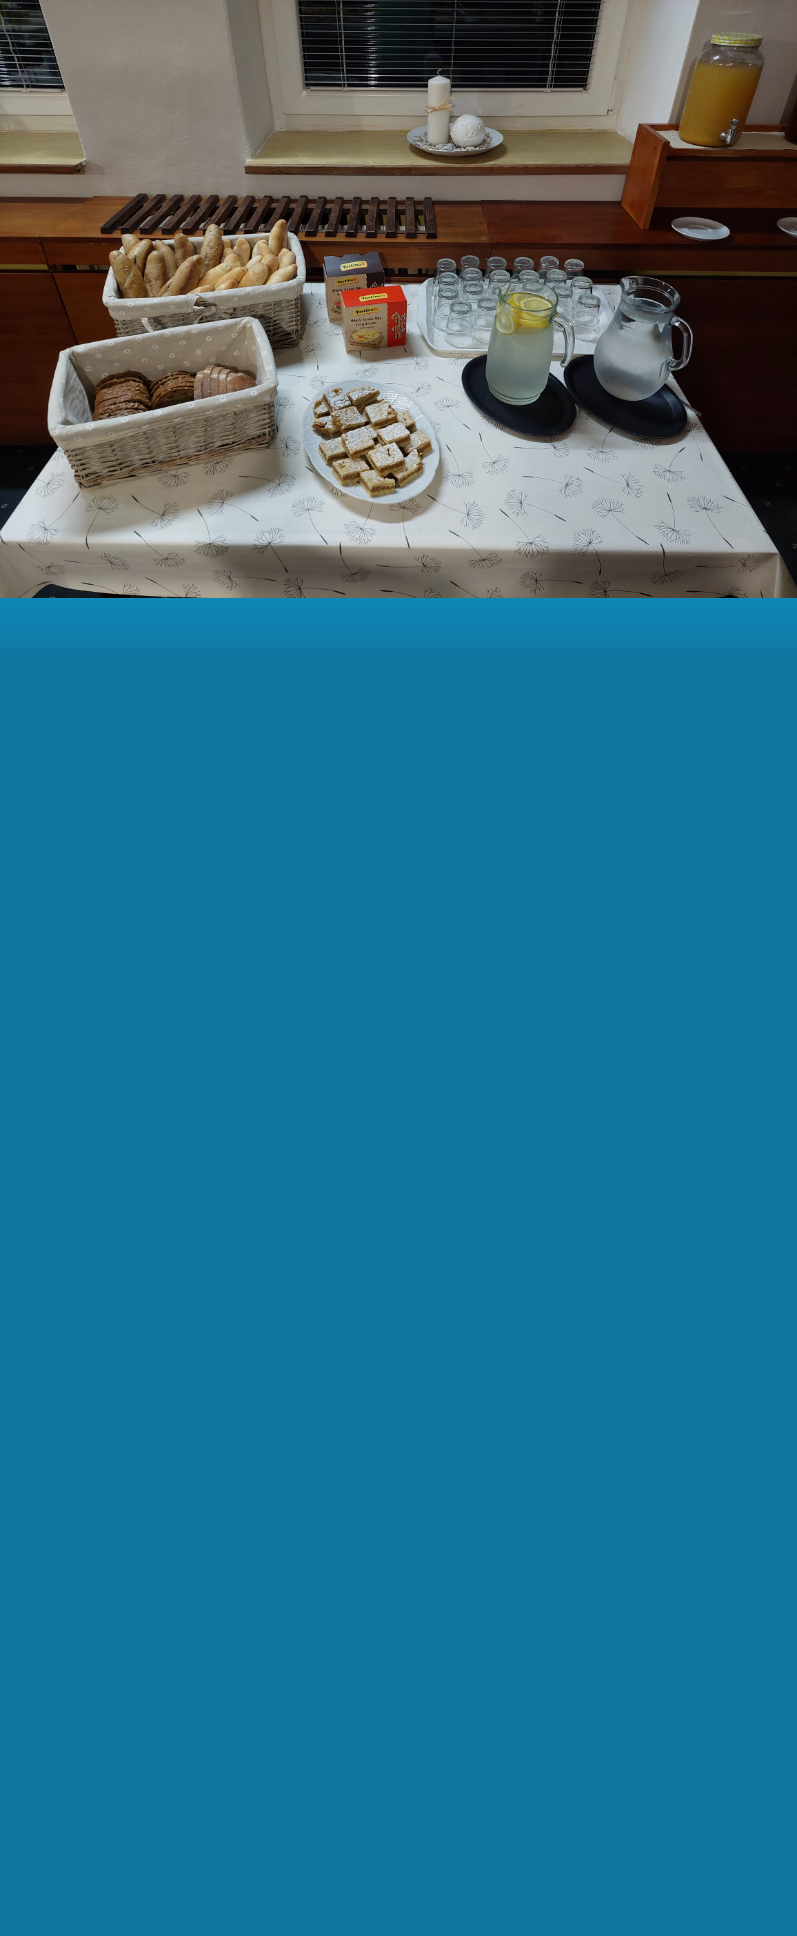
<svg xmlns="http://www.w3.org/2000/svg" xmlns:xlink="http://www.w3.org/1999/xlink" width="797" height="1936" viewBox="0 0 797 1936">
<rect width="100%" height="100%" fill="#1175a2"/>
<image xlink:href="image0.png" x="0" y="598" width="797" height="51"/>
<image xlink:href="image1.png" x="0" y="0" width="797" height="598"/>
</svg>
